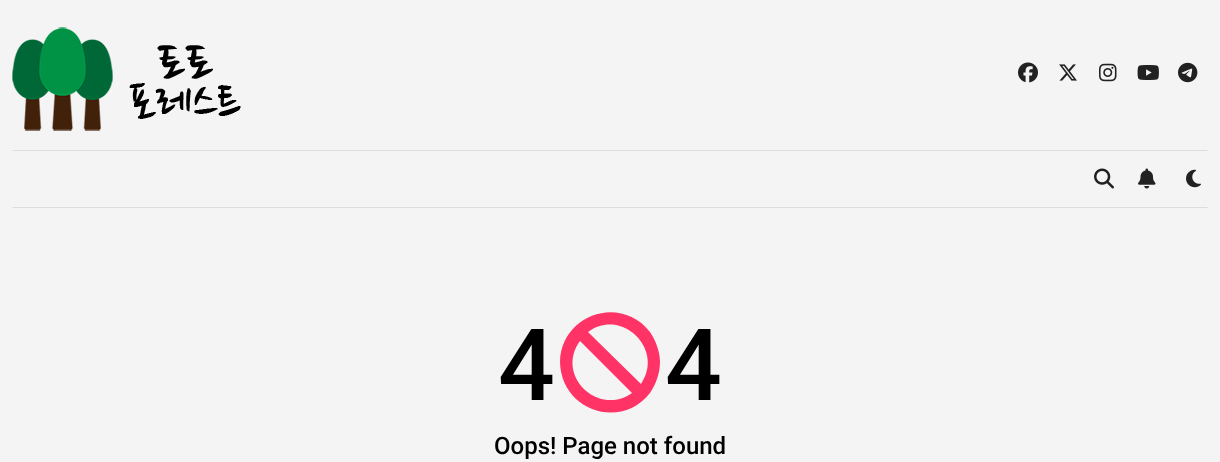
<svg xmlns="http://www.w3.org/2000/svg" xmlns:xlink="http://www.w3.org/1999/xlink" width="1220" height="462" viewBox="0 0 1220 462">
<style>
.cls-1{font:500 100px Roboto;fill:#000000}
.cls-2{font:500 24px Roboto;fill:#000000}
</style>
<rect width="100%" height="100%" fill="#f4f4f4"/>
<image xlink:href="image0.png" x="12" y="27" width="229" height="104"/>
<image xlink:href="image1.png" x="1018" y="62" width="20" height="21"/>
<image xlink:href="image2.png" x="1059" y="64" width="18" height="17"/>
<image xlink:href="image3.png" x="1099" y="63" width="18" height="19"/>
<image xlink:href="image4.png" x="1137" y="65" width="22" height="15"/>
<image xlink:href="image5.png" x="1178" y="62" width="20" height="21"/>
<path fill="#dddddd" d="M12 150H1208L1207 151H13Z"/>
<path fill="#dddddd" d="M1208 208H12L13 207H1207Z"/>
<image xlink:href="image6.png" x="1094" y="168" width="20" height="21"/>
<image xlink:href="image7.png" x="1138" y="168" width="18" height="21"/>
<image xlink:href="image8.png" x="1186" y="169" width="15" height="19"/>
<path fill="#ff3366" d="M632 393L580 341C555 375 598 417 632 393ZM641 384C665 350 622 307 588 332ZM560 362C561 315 620 294 650 332C656 341 660 352 660 362C660 373 656 384 650 393C620 431 561 410 560 362Z"/>
<text class="cls-1" x="498" y="400">4</text>
<text class="cls-1" x="665" y="400">4</text>
<text class="cls-2" x="494" y="454">Oops! Page not found</text>
</svg>
